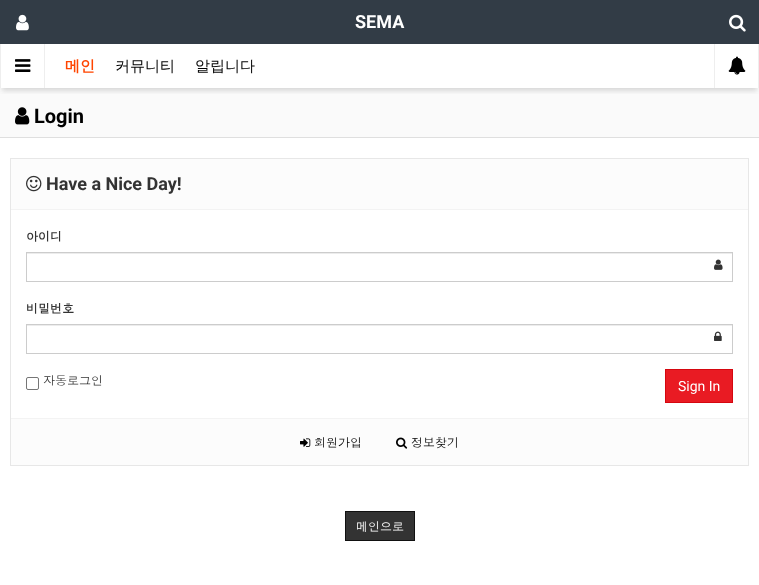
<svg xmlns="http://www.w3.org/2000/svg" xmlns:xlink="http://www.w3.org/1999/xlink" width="759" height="585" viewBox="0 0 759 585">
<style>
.cls-1{font:bold 18px Roboto;fill:#ffffff}
.cls-2{font:bold 15px WenQuanYi Zen Hei;fill:#ff4500}
.cls-3{font:500 15px WenQuanYi Zen Hei;fill:#000000}
.cls-4{font:bold 20px Roboto;fill:#000000}
.cls-5{font:bold 18px Roboto;fill:#333333}
.cls-6{font:bold 12px Dotum;fill:#333333}
.cls-7{font:12px Dotum;fill:#333333}
.cls-8{font:14px Roboto;fill:#ffffff}
.cls-9{font:12px Dotum;fill:#000000}
.cls-10{font:12px Dotum;fill:#ffffff}
</style>
<defs>
<clipPath id="clip1"><rect x="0" y="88" width="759" height="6"/></clipPath>
</defs>
<rect width="100%" height="100%" fill="#ffffff"/>
<rect fill="#323c46" x="0" y="0" width="759" height="44"/>
<image xlink:href="image0.png" x="16" y="14" width="13" height="17"/>
<image xlink:href="image1.png" x="729" y="14" width="17" height="18"/>
<rect fill="#fafafa" x="0" y="88" width="759" height="49"/>
<g clip-path="url(#clip1)">
<rect fill="#191919" fill-opacity="0.15" filter="blur(2.5px)" x="2" y="51" width="755" height="40"/>
</g>
<rect fill="#eeeeee" x="0" y="44" width="1" height="44"/>
<image xlink:href="image2.png" x="15" y="59" width="16" height="13"/>
<rect fill="#eeeeee" x="44" y="44" width="1" height="44"/>
<rect fill="#eeeeee" x="758" y="44" width="1" height="44"/>
<rect fill="#eeeeee" x="714" y="44" width="1" height="44"/>
<image xlink:href="image3.png" x="728" y="56" width="18" height="19"/>
<rect fill="#dfdfdf" x="0" y="137" width="759" height="1"/>
<image xlink:href="image4.png" x="15" y="107" width="15" height="18"/>
<rect fill="#fcfcfc" stroke="#e7e7e7" x="10.5" y="158.5" width="738" height="307"/>
<rect fill="#f3f3f3" x="11" y="209" width="737" height="1"/>
<image xlink:href="image5.png" x="26" y="175" width="16" height="17"/>
<rect fill="#ffffff" x="11" y="210" width="737" height="208"/>
<rect fill="#ececec" x="27" y="253" width="705" height="1"/>
<rect fill="none" stroke="#cccccc" x="26.5" y="252.5" width="706" height="29"/>
<image xlink:href="image6.png" x="714" y="259" width="9" height="11"/>
<rect fill="#ececec" x="27" y="325" width="705" height="1"/>
<rect fill="none" stroke="#cccccc" x="26.5" y="324.5" width="706" height="29"/>
<image xlink:href="image7.png" x="714" y="331" width="8" height="10"/>
<rect fill="none" stroke="#767676" x="26.5" y="377.5" width="12" height="12" rx="1.5"/>
<rect fill="#e91b23" stroke="#d5070f" x="665.5" y="369.5" width="67" height="33"/>
<rect fill="#f3f3f3" x="11" y="418" width="737" height="1"/>
<image xlink:href="image8.png" x="300" y="438" width="11" height="9"/>
<image xlink:href="image9.png" x="396" y="437" width="12" height="12"/>
<rect fill="#333333" stroke="#111111" x="345.5" y="511.5" width="69" height="29"/>
<text class="cls-1" x="355" y="28">SEMA</text>
<text class="cls-2" x="65" y="71">메인</text>
<text class="cls-3" x="115" y="71">커뮤니티</text>
<text class="cls-3" x="195" y="71">알립니다</text>
<text class="cls-4" x="34" y="123">Login</text>
<text class="cls-5" x="46" y="190">Have a Nice Day!</text>
<text class="cls-6" x="26" y="241">아이디</text>
<text class="cls-6" x="26" y="313">비밀번호</text>
<text class="cls-7" x="43" y="385">자동로그인</text>
<text class="cls-8" x="678" y="391">Sign In</text>
<text class="cls-9" x="314" y="447">회원가입</text>
<text class="cls-9" x="411" y="447">정보찾기</text>
<text class="cls-10" x="356" y="531">메인으로</text>
</svg>
